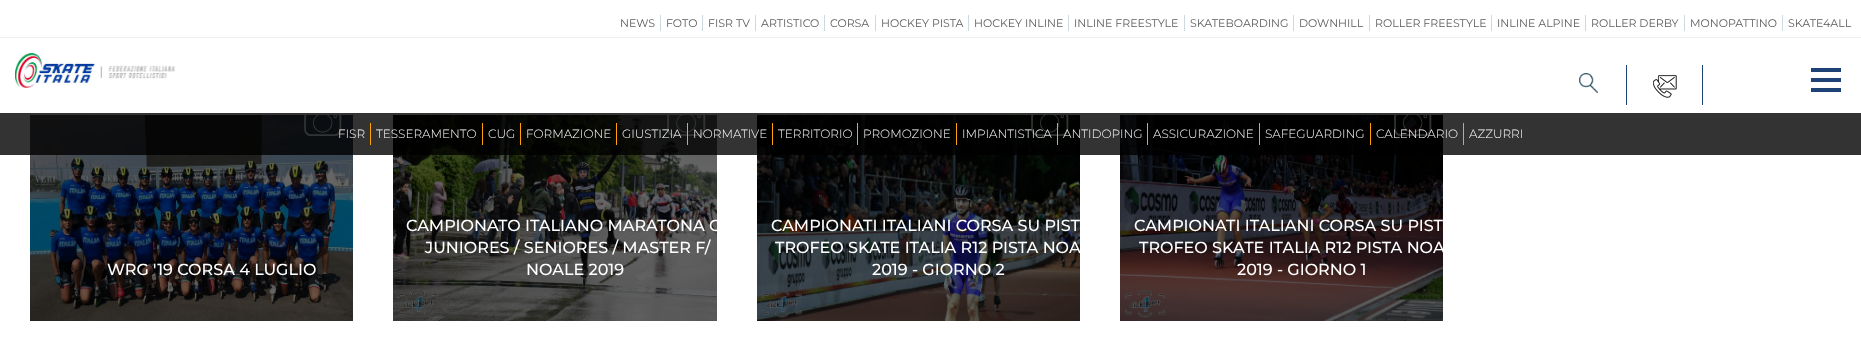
<svg xmlns="http://www.w3.org/2000/svg" xmlns:xlink="http://www.w3.org/1999/xlink" width="1861" height="348" viewBox="0 0 1861 348">
<style>
.cls-1{font:11px Montserrat;fill:#5d5d5d}
.cls-2{font:300 12px Montserrat;fill:#ffffff}
.cls-3{font:500 16px Montserrat;fill:#ffffff}
</style>
<rect width="100%" height="100%" fill="#ffffff"/>
<rect fill="#eceff1" x="0" y="37" width="1861" height="1"/>
<rect fill="#cfd8dc" x="660" y="15" width="1" height="16"/>
<rect fill="#cfd8dc" x="702" y="15" width="1" height="16"/>
<rect fill="#cfd8dc" x="755" y="15" width="1" height="16"/>
<rect fill="#cfd8dc" x="824" y="15" width="1" height="16"/>
<rect fill="#cfd8dc" x="875" y="15" width="1" height="16"/>
<rect fill="#cfd8dc" x="968" y="15" width="1" height="16"/>
<rect fill="#cfd8dc" x="1068" y="15" width="1" height="16"/>
<rect fill="#cfd8dc" x="1184" y="15" width="1" height="16"/>
<rect fill="#cfd8dc" x="1293" y="15" width="1" height="16"/>
<rect fill="#cfd8dc" x="1369" y="15" width="1" height="16"/>
<rect fill="#cfd8dc" x="1491" y="15" width="1" height="16"/>
<rect fill="#cfd8dc" x="1585" y="15" width="1" height="16"/>
<rect fill="#cfd8dc" x="1684" y="15" width="1" height="16"/>
<rect fill="#cfd8dc" x="1782" y="15" width="1" height="16"/>
<image xlink:href="image0.png" x="15" y="53" width="160" height="35"/>
<rect fill="#1d4276" x="1626" y="65" width="1" height="40"/>
<image xlink:href="image1.png" x="1579" y="73" width="19" height="20"/>
<rect fill="#1d4276" x="1702" y="65" width="1" height="40"/>
<image xlink:href="image2.png" x="1653" y="75" width="24" height="23"/>
<rect fill="#1d4276" x="1811" y="68" width="30" height="4"/>
<rect fill="#1d4276" x="1811" y="78" width="30" height="4"/>
<rect fill="#1d4276" x="1811" y="88" width="30" height="4"/>
<image xlink:href="image3.png" x="30" y="115" width="323" height="206"/>
<image xlink:href="image4.png" x="304" y="115" width="38" height="21"/>
<image xlink:href="image5.png" x="393" y="115" width="324" height="206"/>
<image xlink:href="image6.png" x="667" y="115" width="39" height="21"/>
<image xlink:href="image7.png" x="757" y="115" width="323" height="206"/>
<image xlink:href="image8.png" x="1031" y="115" width="38" height="21"/>
<image xlink:href="image9.png" x="1120" y="115" width="323" height="206"/>
<image xlink:href="image10.png" x="1394" y="115" width="38" height="21"/>
<rect fill="#000000" fill-opacity="0.8" x="0" y="113" width="1861" height="42"/>
<rect fill="#ffa202" x="370" y="123" width="1" height="22"/>
<rect fill="#ffa202" x="482" y="123" width="1" height="22"/>
<rect fill="#ffa202" x="520" y="123" width="1" height="22"/>
<rect fill="#ffa202" x="616" y="123" width="1" height="22"/>
<rect fill="#ffa202" x="687" y="123" width="1" height="22"/>
<rect fill="#ffa202" x="772" y="123" width="1" height="22"/>
<rect fill="#ffa202" x="857" y="123" width="1" height="22"/>
<rect fill="#ffa202" x="956" y="123" width="1" height="22"/>
<rect fill="#ffa202" x="1057" y="123" width="1" height="22"/>
<rect fill="#ffa202" x="1147" y="123" width="1" height="22"/>
<rect fill="#ffa202" x="1259" y="123" width="1" height="22"/>
<rect fill="#ffa202" x="1370" y="123" width="1" height="22"/>
<rect fill="#ffa202" x="1463" y="123" width="1" height="22"/>
<text class="cls-1" x="620" y="27">NEWS</text>
<text class="cls-1" x="666" y="27">FOTO</text>
<text class="cls-1" x="708" y="27">FISR TV</text>
<text class="cls-1" x="761" y="27">ARTISTICO</text>
<text class="cls-1" x="830" y="27">CORSA</text>
<text class="cls-1" x="881" y="27">HOCKEY PISTA</text>
<text class="cls-1" x="974" y="27">HOCKEY INLINE</text>
<text class="cls-1" x="1074" y="27">INLINE FREESTYLE</text>
<text class="cls-1" x="1190" y="27">SKATEBOARDING</text>
<text class="cls-1" x="1299" y="27">DOWNHILL</text>
<text class="cls-1" x="1375" y="27">ROLLER FREESTYLE</text>
<text class="cls-1" x="1497" y="27">INLINE ALPINE</text>
<text class="cls-1" x="1591" y="27">ROLLER DERBY</text>
<text class="cls-1" x="1690" y="27">MONOPATTINO</text>
<text class="cls-1" x="1788" y="27">SKATE4ALL</text>
<text class="cls-2" x="338" y="138">FISR</text>
<text class="cls-2" x="376" y="138">TESSERAMENTO</text>
<text class="cls-2" x="488" y="138">CUG</text>
<text class="cls-2" x="526" y="138">FORMAZIONE</text>
<text class="cls-2" x="622" y="138">GIUSTIZIA</text>
<text class="cls-2" x="693" y="138">NORMATIVE</text>
<text class="cls-2" x="778" y="138">TERRITORIO</text>
<text class="cls-2" x="863" y="138">PROMOZIONE</text>
<text class="cls-2" x="962" y="138">IMPIANTISTICA</text>
<text class="cls-2" x="1063" y="138">ANTIDOPING</text>
<text class="cls-2" x="1153" y="138">ASSICURAZIONE</text>
<text class="cls-2" x="1265" y="138">SAFEGUARDING</text>
<text class="cls-2" x="1376" y="138">CALENDARIO</text>
<text class="cls-2" x="1469" y="138">AZZURRI</text>
<text class="cls-3" x="107" y="275">WRG '19 CORSA 4 LUGLIO</text>
<text class="cls-3" x="406" y="231">CAMPIONATO ITALIANO MARATONA C</text>
<text class="cls-3" x="425" y="253">JUNIORES / SENIORES / MASTER F/</text>
<text class="cls-3" x="526" y="275">NOALE 2019</text>
<text class="cls-3" x="771" y="231">CAMPIONATI ITALIANI CORSA SU PIST</text>
<text class="cls-3" x="775" y="253">TROFEO SKATE ITALIA R12 PISTA NOA</text>
<text class="cls-3" x="872" y="275">2019 - GIORNO 2</text>
<text class="cls-3" x="1134" y="231">CAMPIONATI ITALIANI CORSA SU PIST</text>
<text class="cls-3" x="1139" y="253">TROFEO SKATE ITALIA R12 PISTA NOA</text>
<text class="cls-3" x="1237" y="275">2019 - GIORNO 1</text>
</svg>
